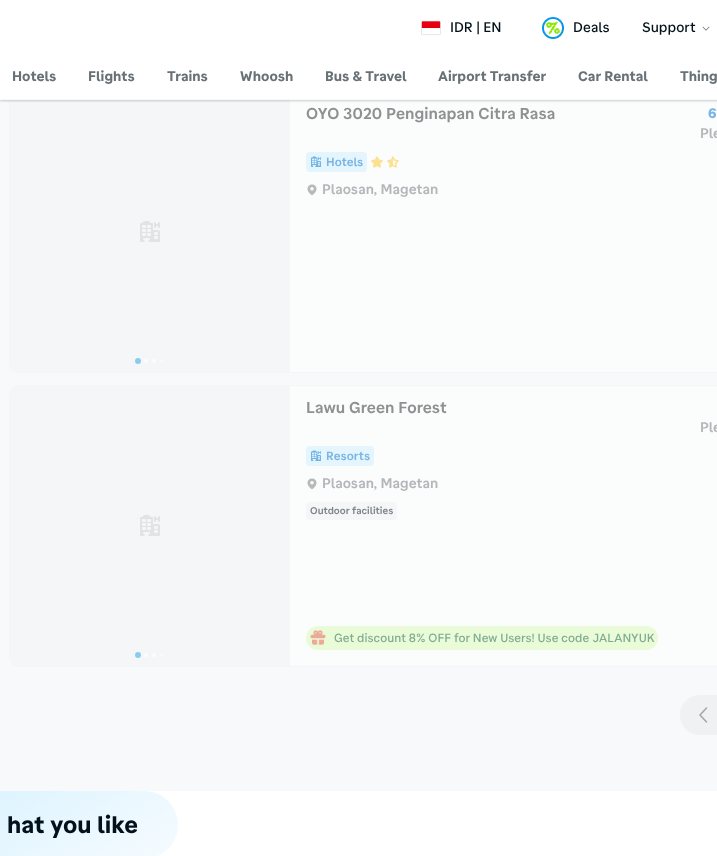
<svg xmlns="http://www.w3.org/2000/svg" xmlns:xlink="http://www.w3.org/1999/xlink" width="717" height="856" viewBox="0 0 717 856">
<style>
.cls-1{font:500 14px 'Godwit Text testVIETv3';fill:#03121a}
.cls-2{font:bold 14px 'Godwit Text testVIETv3';fill:#687176}
.cls-3{font:600 16px 'Godwit Text testVIETv3';fill:#8e9091}
.cls-4{font:800 14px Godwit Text;fill:#7cb5e4}
.cls-5{font:600 14px 'Godwit Text testVIETv3';fill:#b4b7b9}
.cls-6{font:600 12px 'Godwit Text testVIETv3';fill:#7cb5e4}
.cls-7{font:600 10px 'Godwit Text testVIETv3';fill:#7d868a}
.cls-8{font:500 12px 'Godwit Text testVIETv3';fill:#81ab93}
.cls-9{font:bold 24px 'Godwit Text testVIETv3';fill:#03121a}
</style>
<defs>
<linearGradient id="g1" gradientUnits="userSpaceOnUse" x1="-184" y1="595" x2="38" y2="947"><stop offset="0" stop-color="#91d6fd"/><stop offset="0.44" stop-color="#d1f0ff"/><stop offset="0.98" stop-color="#f5fbff"/><stop offset="0.98" stop-color="#ffffff"/></linearGradient>
</defs>
<rect width="100%" height="100%" fill="#f7f9fa"/>
<rect fill="#fbfcfc" stroke="#f4f5f6" x="9.5" y="91.5" width="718" height="281" rx="9.5"/>
<path fill="#f5f6f7" d="M19 92H290V372H19C14 372 10 368 10 363V101C10 96 14 92 19 92Z"/>
<rect fill="#03121a" fill-opacity="0.2" filter="blur(1px)" x="0" y="1" width="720" height="100"/>
<rect fill="#ffffff" x="0" y="0" width="717" height="99"/>
<rect fill="#f7f9fa" x="0" y="99" width="717" height="1"/>
<image xlink:href="image0.png" x="421" y="20" width="20" height="16"/>
<image xlink:href="image1.png" x="542" y="17" width="22" height="22"/>
<image xlink:href="image2.png" x="702" y="26" width="8" height="5"/>
<image xlink:href="image3.png" x="140" y="221" width="20" height="21"/>
<circle fill="#89cdee" cx="138" cy="361" r="3"/>
<circle fill="#fbfcfd" cx="146" cy="361" r="2"/>
<circle fill="#fbfcfd" cx="154" cy="361" r="2"/>
<circle fill="#fbfcfd" cx="162" cy="361" r="1"/>
<rect fill="#e4f5fd" x="306" y="152" width="61" height="20" rx="4"/>
<image xlink:href="image4.png" x="311" y="156" width="10" height="11"/>
<image xlink:href="image5.png" x="371" y="156" width="12" height="12"/>
<image xlink:href="image6.png" x="387" y="156" width="12" height="12"/>
<image xlink:href="image7.png" x="307" y="184" width="10" height="12"/>
<rect fill="#fbfcfc" stroke="#f4f5f6" x="9.5" y="385.5" width="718" height="281" rx="9.5"/>
<path fill="#f5f6f7" d="M19 386H290V666H19C14 666 10 662 10 657V395C10 390 14 386 19 386Z"/>
<image xlink:href="image3.png" x="140" y="515" width="20" height="21"/>
<circle fill="#89cdee" cx="138" cy="655" r="3"/>
<circle fill="#fbfcfd" cx="146" cy="655" r="2"/>
<circle fill="#fbfcfd" cx="154" cy="655" r="2"/>
<circle fill="#fbfcfd" cx="162" cy="655" r="1"/>
<rect fill="#e4f5fd" x="306" y="446" width="68" height="20" rx="4"/>
<image xlink:href="image4.png" x="311" y="450" width="10" height="11"/>
<image xlink:href="image7.png" x="307" y="478" width="10" height="12"/>
<rect fill="#f5f6f7" x="306" y="502" width="91" height="18" rx="4"/>
<rect fill="#eafcd7" x="306" y="626" width="352" height="24" rx="12"/>
<image xlink:href="image8.png" x="310" y="630" width="16" height="15"/>
<rect fill="#f0f1f2" x="680" y="695" width="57" height="40" rx="20"/>
<image xlink:href="image9.png" x="699" y="707" width="9" height="16"/>
<rect fill="#ffffff" x="144" y="791" width="573" height="65"/>
<path fill="url(#g1)" d="M-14 791H144C163 791 178 806 178 825C178 844 163 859 144 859H-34V811C-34 800-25 791-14 791Z"/>
<text class="cls-1" x="450" y="32">IDR | EN</text>
<text class="cls-1" x="573" y="32">Deals</text>
<text class="cls-1" x="642" y="32">Support</text>
<text class="cls-2" x="12" y="81">Hotels</text>
<text class="cls-2" x="88" y="81">Flights</text>
<text class="cls-2" x="167" y="81">Trains</text>
<text class="cls-2" x="240" y="81">Whoosh</text>
<text class="cls-2" x="325" y="81">Bus &amp; Travel</text>
<text class="cls-2" x="438" y="81">Airport Transfer</text>
<text class="cls-2" x="578" y="81">Car Rental</text>
<text class="cls-2" x="680" y="81">Thing</text>
<text class="cls-3" x="306" y="119">OYO 3020 Penginapan Citra Rasa</text>
<text class="cls-4" x="708" y="118">6</text>
<text class="cls-5" x="700" y="138">Ple</text>
<text class="cls-6" x="326" y="166">Hotels</text>
<text class="cls-5" x="322" y="194">Plaosan, Magetan</text>
<text class="cls-3" x="306" y="413">Lawu Green Forest</text>
<text class="cls-5" x="700" y="432">Ple</text>
<text class="cls-6" x="326" y="460">Resorts</text>
<text class="cls-5" x="322" y="488">Plaosan, Magetan</text>
<text class="cls-7" x="310" y="514">Outdoor facilities</text>
<text class="cls-8" x="334" y="642">Get discount 8% OFF for New Users! Use code JALANYUK</text>
<text class="cls-9" x="7" y="833">hat you like</text>
</svg>
